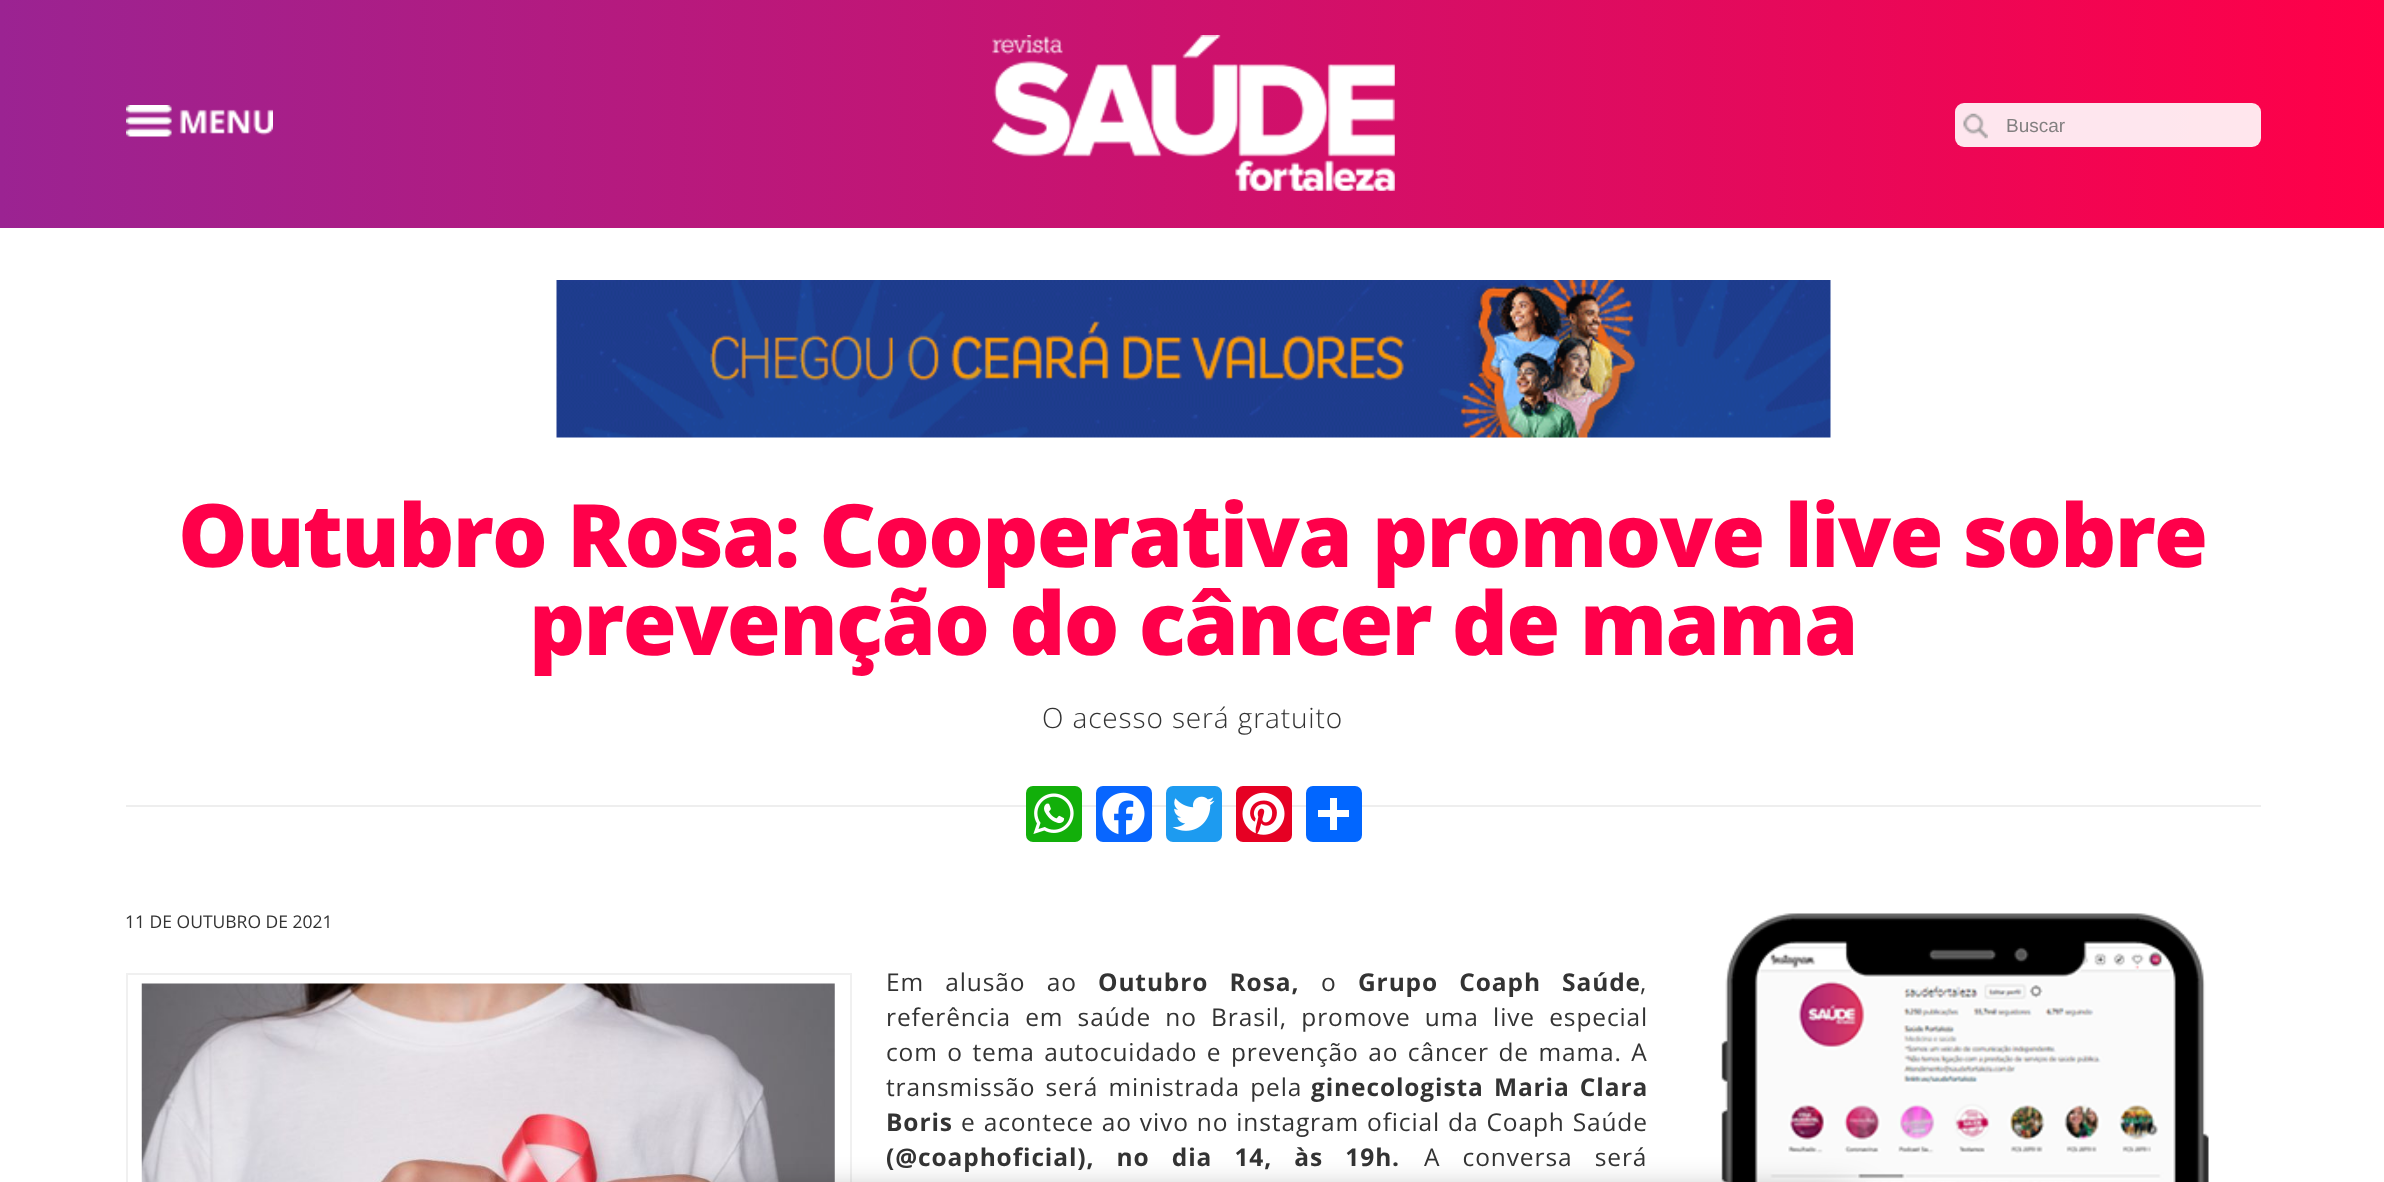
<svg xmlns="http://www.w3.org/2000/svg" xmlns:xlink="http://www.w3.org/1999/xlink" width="2384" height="1182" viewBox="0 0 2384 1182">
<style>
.cls-1{font:19px Liberation Sans;fill:#838081}
.cls-2{font:800 87.5px Open Sans;letter-spacing:-1.75px;fill:#ff004a}
.cls-3{font:300 28px Open Sans;letter-spacing:0.88px;fill:#333333}
.cls-4{font:17.5px Open Sans;fill:#333333}
.cls-5{font:24.5px Open Sans;letter-spacing:0.88px;fill:#333333}
.cls-6{font:bold 24.5px Open Sans;letter-spacing:0.88px;fill:#333333}
</style>
<defs>
<linearGradient id="g1" gradientUnits="userSpaceOnUse" x1="0" y1="114" x2="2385" y2="114"><stop offset="0" stop-color="#9b2392"/><stop offset="1" stop-color="#ff0048"/></linearGradient>
</defs>
<rect width="100%" height="100%" fill="#ffffff"/>
<rect fill="url(#g1)" x="0" y="0" width="2384" height="228"/>
<image xlink:href="image0.png" x="126" y="105" width="147" height="32"/>
<image xlink:href="image1.png" x="992" y="35" width="403" height="156"/>
<rect fill="#ffffff" fill-opacity="0.9" x="1955" y="103" width="306" height="44" rx="9"/>
<image xlink:href="image2.png" x="1963" y="113" width="25" height="26"/>
<rect fill="none" stroke="#f0f0f0" stroke-width="2" x="127" y="974" width="724" height="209"/>
<image xlink:href="image8.png" x="141" y="983" width="694" height="199"/>
<image xlink:href="image9.png" x="1721" y="913" width="488" height="269"/>
<rect fill="#000000" fill-opacity="0.75" filter="blur(21px)" x="674" y="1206" width="1179" height="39"/>
<image xlink:href="image3.png" x="556" y="280" width="1275" height="158"/>
<rect fill="#eeeeee" x="126" y="805" width="2135" height="2"/>
<rect fill="#12af0a" x="1026" y="786" width="56" height="56" rx="7"/>
<image xlink:href="image4.png" x="1033" y="793" width="41" height="41"/>
<rect fill="#0866ff" x="1096" y="786" width="56" height="56" rx="7"/>
<image xlink:href="image5.png" x="1102" y="792" width="43" height="43"/>
<rect fill="#1d9bf0" x="1166" y="786" width="56" height="56" rx="7"/>
<image xlink:href="image6.png" x="1172" y="796" width="43" height="35"/>
<rect fill="#e60023" x="1236" y="786" width="56" height="56" rx="7"/>
<image xlink:href="image7.png" x="1242" y="792" width="43" height="43"/>
<rect fill="#0166ff" x="1306" y="786" width="56" height="56" rx="7"/>
<rect fill="#ffffff" x="1330" y="798" width="7" height="32"/>
<rect fill="#ffffff" x="1318" y="810" width="31" height="7"/>
<text class="cls-1" x="2006" y="132">Buscar</text>
<text class="cls-2" x="178" y="567">Outubro Rosa: Cooperativa promove live sobre</text>
<text class="cls-2" x="529" y="655">prevenção do câncer de mama</text>
<text class="cls-3" x="1042" y="728">O acesso será gratuito</text>
<text class="cls-4" x="125" y="928">11 DE OUTUBRO DE 2021</text>
<text class="cls-5" x="886" y="991" word-spacing="14">Em alusão ao</text>
<text class="cls-6" x="1098" y="991" word-spacing="14">Outubro Rosa,</text>
<text class="cls-5" x="1321" y="991">o</text>
<text class="cls-6" x="1358" y="991" word-spacing="14">Grupo Coaph Saúde</text>
<text class="cls-5" x="1640" y="991">,</text>
<text class="cls-5"><tspan x="886" y="1026" word-spacing="7">referência em saúde no Brasil, promove uma live especial</tspan><tspan x="886" y="1061" word-spacing="2.25">com o tema autocuidado e prevenção ao câncer de mama. A</tspan><tspan x="886" y="1096" word-spacing="3">transmissão será ministrada pela</tspan></text>
<text class="cls-6" x="1311" y="1096" word-spacing="3">ginecologista Maria Clara</text>
<text class="cls-6" x="886" y="1131">Boris</text>
<text class="cls-5" x="961" y="1131" word-spacing="0.75">e acontece ao vivo no instagram oficial da Coaph Saúde</text>
<text class="cls-6" x="886" y="1166" word-spacing="15">(@coaphoficial), no dia 14, às 19h.</text>
<text class="cls-5" x="1424" y="1166" word-spacing="15">A conversa será</text>
</svg>
